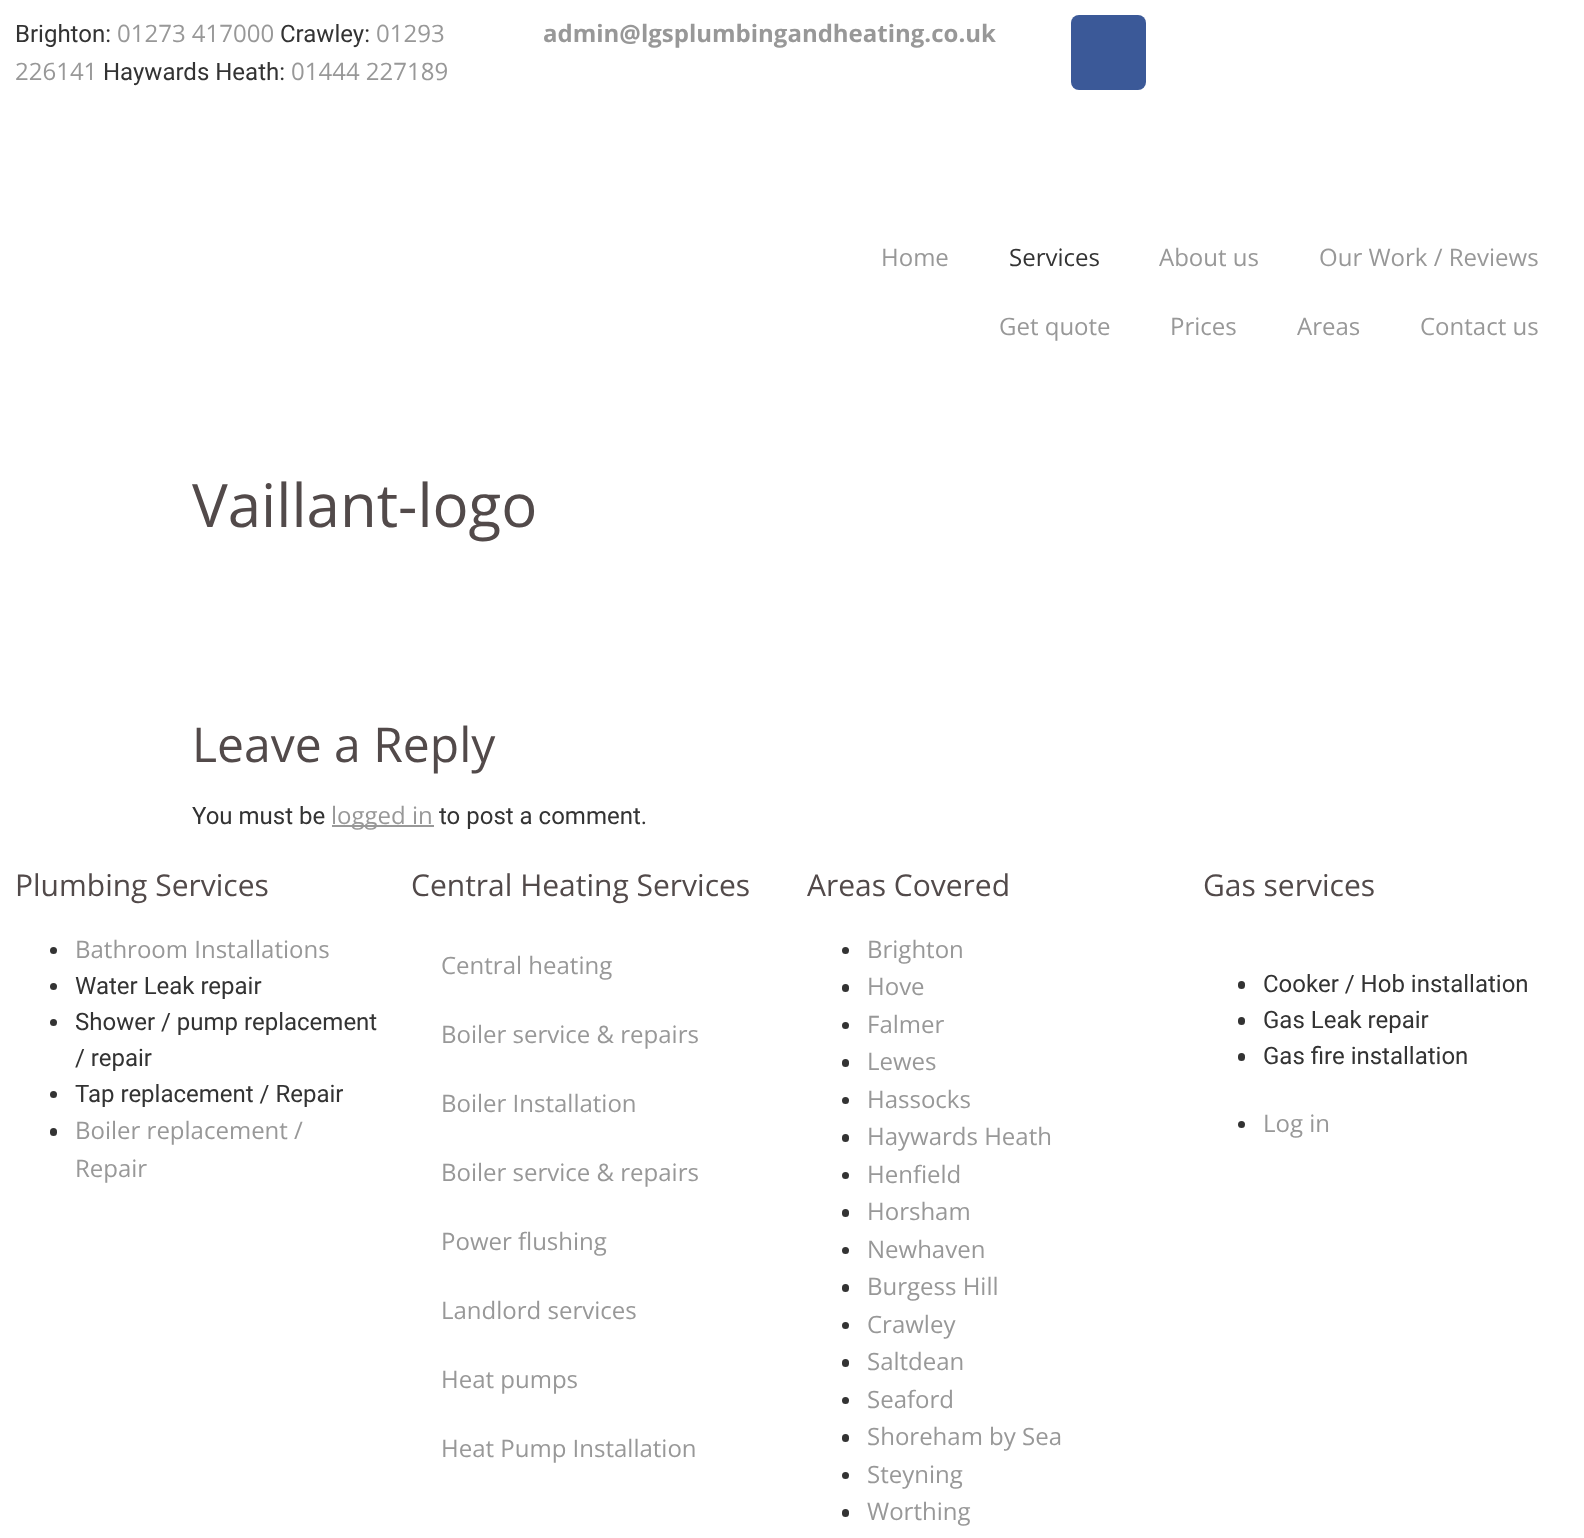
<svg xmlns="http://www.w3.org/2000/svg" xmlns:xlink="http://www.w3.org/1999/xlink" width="1584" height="1538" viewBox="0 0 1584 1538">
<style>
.cls-1{font:24px Roboto;fill:#333333}
.cls-2{font:24px Open Sans;fill:#989898}
.cls-3{font:bold 24px Open Sans;fill:#989898}
.cls-4{font:24px Open Sans;fill:#333333}
.cls-5{font:60px Open Sans;fill:#524a4a}
.cls-6{font:48px Open Sans;fill:#524a4a}
.cls-7{font:30px Open Sans;fill:#524a4a}
</style>
<rect width="100%" height="100%" fill="#ffffff"/>
<rect fill="#3b5998" x="1071" y="15" width="75" height="75" rx="8"/>
<rect fill="#989898" x="332" y="825" width="102" height="2"/>
<circle fill="#333333" cx="53.5" cy="950.5" r="3.5"/>
<circle fill="#333333" cx="53.5" cy="986.5" r="3.5"/>
<circle fill="#333333" cx="53.5" cy="1022.5" r="3.5"/>
<circle fill="#333333" cx="53.5" cy="1094.5" r="3.5"/>
<rect fill="#333333" x="50" y="1128" width="7" height="8" rx="3.5"/>
<circle fill="#333333" cx="845.5" cy="950.5" r="3.5"/>
<rect fill="#333333" x="842" y="984" width="7" height="8" rx="3.5"/>
<circle fill="#333333" cx="845.5" cy="1025.5" r="3.5"/>
<rect fill="#333333" x="842" y="1059" width="7" height="8" rx="3.5"/>
<circle fill="#333333" cx="845.5" cy="1100.5" r="3.5"/>
<rect fill="#333333" x="842" y="1134" width="7" height="8" rx="3.5"/>
<circle fill="#333333" cx="845.5" cy="1175.5" r="3.5"/>
<rect fill="#333333" x="842" y="1209" width="7" height="8" rx="3.5"/>
<circle fill="#333333" cx="845.5" cy="1250.5" r="3.5"/>
<rect fill="#333333" x="842" y="1284" width="7" height="8" rx="3.5"/>
<circle fill="#333333" cx="845.5" cy="1325.5" r="3.5"/>
<rect fill="#333333" x="842" y="1359" width="7" height="8" rx="3.5"/>
<circle fill="#333333" cx="845.5" cy="1400.5" r="3.5"/>
<rect fill="#333333" x="842" y="1434" width="7" height="8" rx="3.5"/>
<circle fill="#333333" cx="845.5" cy="1475.5" r="3.5"/>
<rect fill="#333333" x="842" y="1509" width="7" height="8" rx="3.5"/>
<rect fill="#333333" x="1238" y="981" width="7" height="8" rx="3.5"/>
<rect fill="#333333" x="1238" y="1017" width="7" height="8" rx="3.5"/>
<rect fill="#333333" x="1238" y="1053" width="7" height="8" rx="3.5"/>
<circle fill="#333333" cx="1241.5" cy="1124.5" r="3.5"/>
<text class="cls-1" x="15" y="42">Brighton:</text>
<text class="cls-2" x="117" y="42">01273 417000</text>
<text class="cls-1" x="280" y="42">Crawley:</text>
<text class="cls-2" x="376" y="42">01293</text>
<text class="cls-2" x="15" y="80">226141</text>
<text class="cls-1" x="103" y="80">Haywards Heath:</text>
<text class="cls-2" x="291" y="80">01444 227189</text>
<text class="cls-3" x="543" y="42">admin@lgsplumbingandheating.co.uk</text>
<text class="cls-2" x="881" y="266">Home</text>
<text class="cls-4" x="1009" y="266">Services</text>
<text class="cls-2" x="1159" y="266">About us</text>
<text class="cls-2" x="1319" y="266">Our Work / Reviews</text>
<text class="cls-2" x="999" y="335">Get quote</text>
<text class="cls-2" x="1170" y="335">Prices</text>
<text class="cls-2" x="1297" y="335">Areas</text>
<text class="cls-2" x="1420" y="335">Contact us</text>
<text class="cls-5" x="192" y="527">Vaillant-logo</text>
<text class="cls-6" x="192" y="762">Leave a Reply</text>
<text class="cls-1" x="192" y="824">You must be</text>
<text class="cls-2" x="331" y="824">logged in</text>
<text class="cls-1" x="439" y="824">to post a comment.</text>
<text class="cls-7" x="15" y="896">Plumbing Services</text>
<text class="cls-2" x="75" y="958">Bathroom Installations</text>
<text class="cls-1"><tspan x="75" y="994">Water Leak repair</tspan><tspan x="75" y="1030">Shower / pump replacement</tspan><tspan x="75" y="1066">/ repair</tspan><tspan x="75" y="1102">Tap replacement / Repair</tspan></text>
<text class="cls-2"><tspan x="75" y="1139">Boiler replacement /</tspan><tspan x="75" y="1177">Repair</tspan></text>
<text class="cls-7" x="411" y="896">Central Heating Services</text>
<text class="cls-2" x="441" y="974">Central heating</text>
<text class="cls-2" x="441" y="1043">Boiler service &amp; repairs</text>
<text class="cls-2" x="441" y="1112">Boiler Installation</text>
<text class="cls-2" x="441" y="1181">Boiler service &amp; repairs</text>
<text class="cls-2" x="441" y="1250">Power flushing</text>
<text class="cls-2" x="441" y="1319">Landlord services</text>
<text class="cls-2" x="441" y="1388">Heat pumps</text>
<text class="cls-2" x="441" y="1457">Heat Pump Installation</text>
<text class="cls-7" x="807" y="896">Areas Covered</text>
<text class="cls-2"><tspan x="867" y="958">Brighton</tspan><tspan x="867" y="995">Hove</tspan><tspan x="867" y="1033">Falmer</tspan><tspan x="867" y="1070">Lewes</tspan><tspan x="867" y="1108">Hassocks</tspan><tspan x="867" y="1145">Haywards Heath</tspan><tspan x="867" y="1183">Henfield</tspan><tspan x="867" y="1220">Horsham</tspan><tspan x="867" y="1258">Newhaven</tspan><tspan x="867" y="1295">Burgess Hill</tspan><tspan x="867" y="1333">Crawley</tspan><tspan x="867" y="1370">Saltdean</tspan><tspan x="867" y="1408">Seaford</tspan><tspan x="867" y="1445">Shoreham by Sea</tspan><tspan x="867" y="1483">Steyning</tspan><tspan x="867" y="1520">Worthing</tspan></text>
<text class="cls-7" x="1203" y="896">Gas services</text>
<text class="cls-1"><tspan x="1263" y="992">Cooker / Hob installation</tspan><tspan x="1263" y="1028">Gas Leak repair</tspan><tspan x="1263" y="1064">Gas fire installation</tspan></text>
<text class="cls-2" x="1263" y="1132">Log in</text>
</svg>
